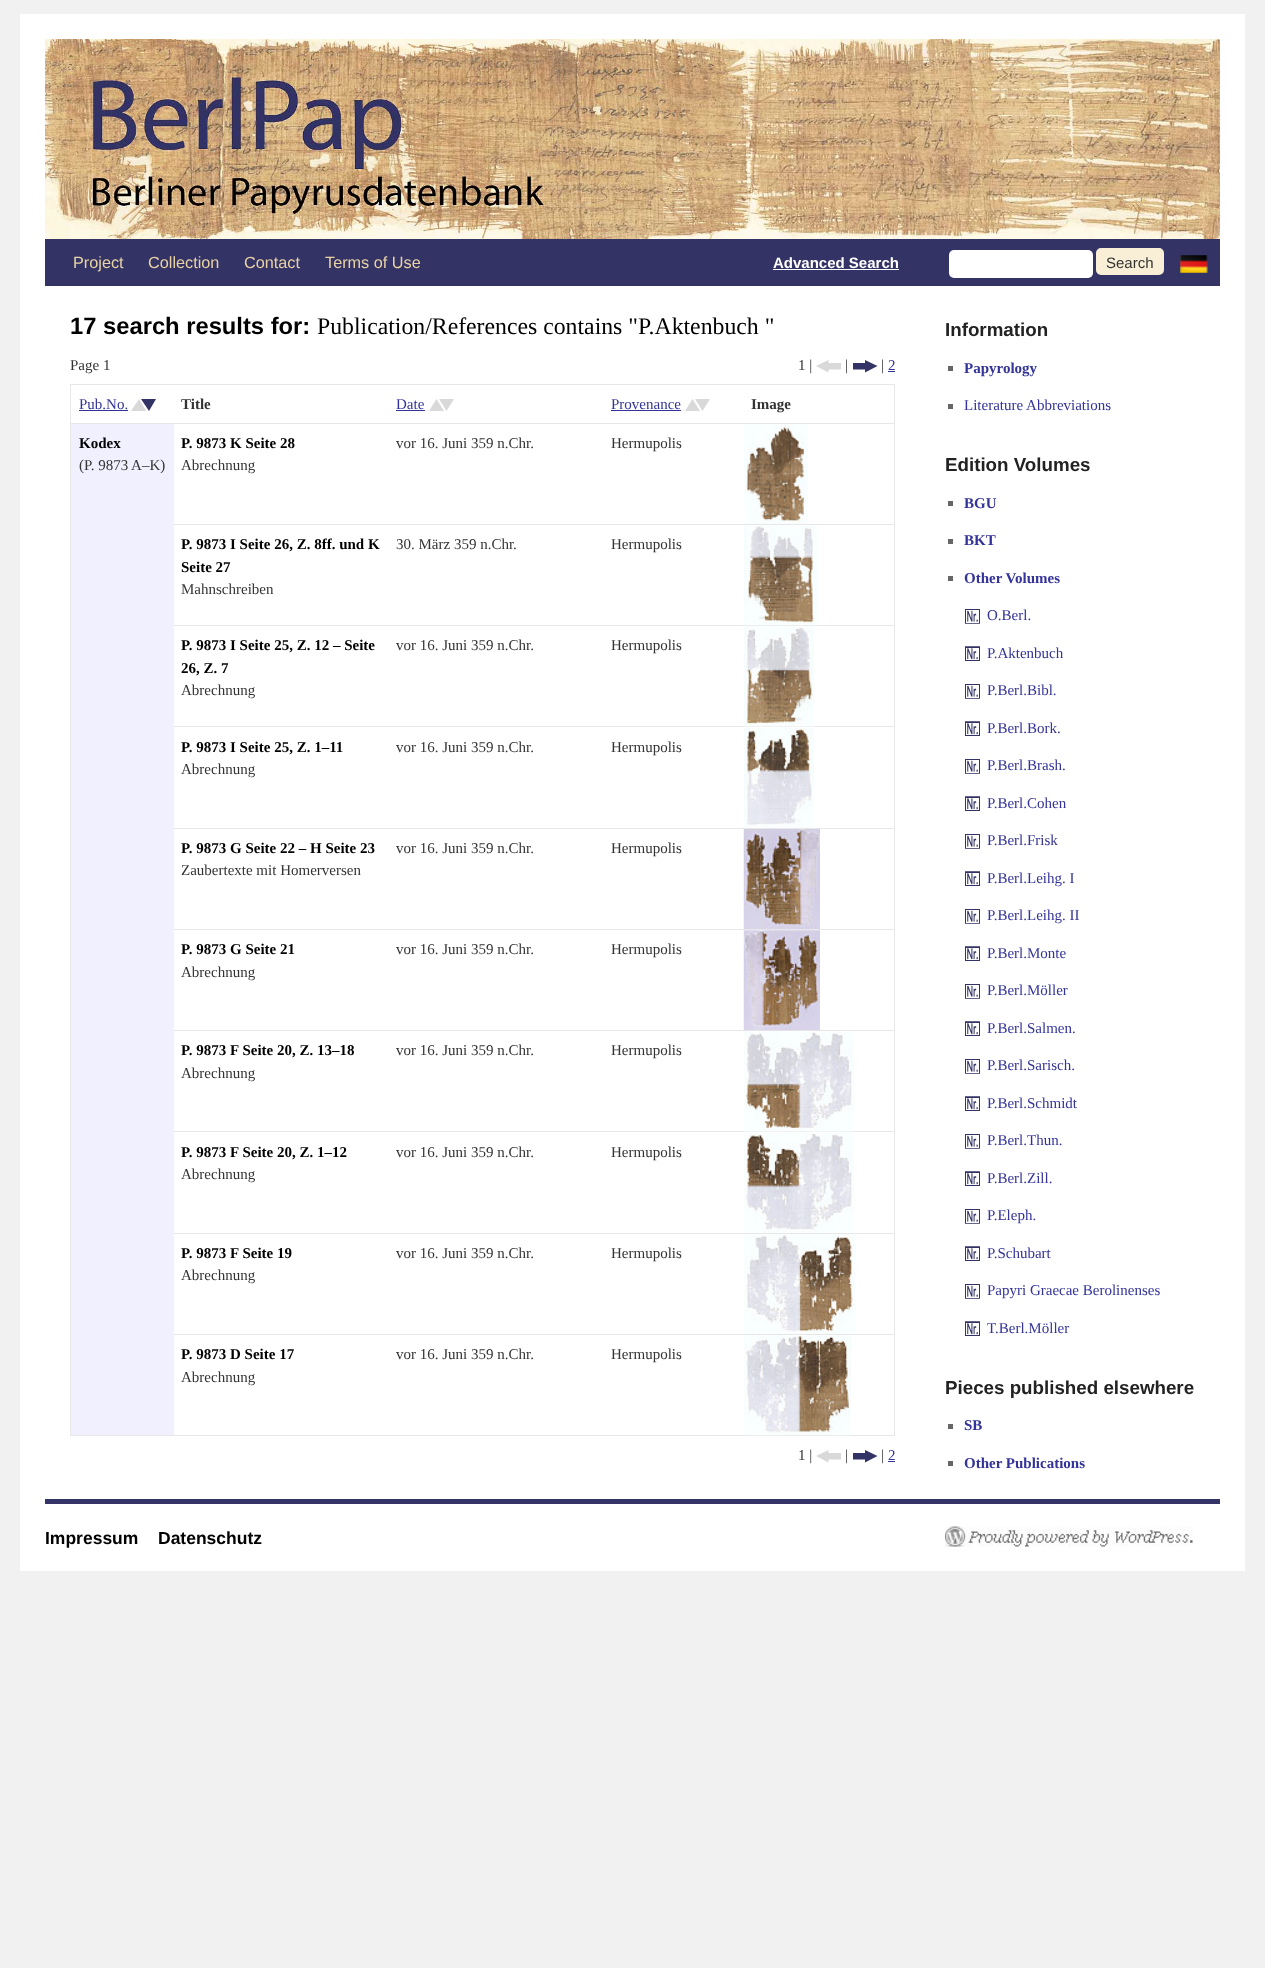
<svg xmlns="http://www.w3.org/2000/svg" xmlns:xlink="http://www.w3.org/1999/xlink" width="1265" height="1968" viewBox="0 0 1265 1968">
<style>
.cls-1{font:16.25px Liberation Sans;fill:#e9d3a3}
.cls-2{font:bold 15px Liberation Sans;fill:#ffffff}
.cls-3{font:15px Liberation Sans;fill:#333333}
.cls-4{font:bold 23.75px Liberation Sans;fill:#000000}
.cls-5{font:23.75px Liberation Serif;fill:#000000}
.cls-6{font:15px Liberation Serif;fill:#333333}
.cls-7{font:15px Liberation Serif;fill:#333399}
.cls-8{font:bold 15px Liberation Serif;fill:#333333}
.cls-9{font:bold 15px Liberation Serif;fill:#000000}
.cls-10{font:bold 18.75px Liberation Sans;fill:#222222}
.cls-11{font:bold 15px Liberation Serif;fill:#333399}
.cls-12{font:bold 17.5px Liberation Sans;fill:#000000}
</style>
<defs>
<clipPath id="clip1"><rect x="853" y="360" width="25" height="13"/></clipPath>
<clipPath id="clip2"><rect x="853" y="1450" width="25" height="13"/></clipPath>
</defs>
<rect width="100%" height="100%" fill="#f1f1f1"/>
<rect fill="#ffffff" x="20" y="14" width="1225" height="1557"/>
<image xlink:href="image0.png" x="45" y="39" width="704" height="200"/>
<image xlink:href="image1.png" x="748" y="39" width="472" height="200"/>
<rect fill="#333366" x="45" y="239" width="1175" height="47"/>
<rect fill="#ffffff" x="773" y="269" width="126" height="1"/>
<rect fill="#ffffff" x="949" y="250" width="144" height="28" rx="5"/>
<rect fill="#f9efd6" stroke="#f9efd6" stroke-width="3" x="1097.5" y="249.5" width="65" height="24" rx="3.5"/>
<image xlink:href="image2.png" x="1180" y="255" width="28" height="18"/>
<path fill="#d9d9d9" d="M841 363H828.5V360L816 366L828.5 372.5V369.5H841Z"/>
<g clip-path="url(#clip1)">
<path fill="#333366" d="M852.5 363H865V360L877.5 366L865 372.5V369.5H852.5Z"/>
</g>
<rect fill="#333399" x="888" y="371" width="7" height="1"/>
<rect fill="#e7e7e7" x="70" y="384" width="825" height="1"/>
<rect fill="#e7e7e7" x="894" y="384" width="1" height="1052"/>
<rect fill="#e7e7e7" x="70" y="1435" width="825" height="1"/>
<rect fill="#e7e7e7" x="70" y="384" width="1" height="1052"/>
<rect fill="#333399" x="79" y="410" width="49" height="1"/>
<path fill="#d9d9d9" d="M131 411L139 399L146 411Z"/>
<path fill="#333366" d="M141 399L149 411L156 399Z"/>
<rect fill="#333399" x="396" y="410" width="29" height="1"/>
<path fill="#d9d9d9" d="M429 411L436.5 399L444 411Z"/>
<path fill="#d9d9d9" d="M439 399L446.5 411L454 399Z"/>
<rect fill="#333399" x="611" y="410" width="70" height="1"/>
<path fill="#d9d9d9" d="M685 411L692.5 399L700 411Z"/>
<path fill="#d9d9d9" d="M695 399L702.5 411L710 399Z"/>
<rect fill="#e7e7e7" x="70" y="423" width="825" height="1"/>
<image xlink:href="image3.png" x="744" y="424" width="64" height="100"/>
<rect fill="#f0f0ff" x="71" y="424" width="103" height="1011"/>
<rect fill="#e7e7e7" x="174" y="524" width="721" height="1"/>
<rect fill="#e7e7e7" x="174" y="625" width="721" height="1"/>
<image xlink:href="image4.png" x="744" y="525" width="74" height="101"/>
<rect fill="#e7e7e7" x="174" y="726" width="721" height="1"/>
<image xlink:href="image5.png" x="743" y="626" width="71" height="101"/>
<image xlink:href="image6.png" x="744" y="728" width="70" height="100"/>
<rect fill="#e7e7e7" x="174" y="828" width="721" height="1"/>
<image xlink:href="image7.png" x="743" y="829" width="77" height="100"/>
<rect fill="#e7e7e7" x="174" y="929" width="721" height="1"/>
<rect fill="#e7e7e7" x="174" y="1030" width="721" height="1"/>
<image xlink:href="image8.png" x="743" y="930" width="77" height="101"/>
<rect fill="#e7e7e7" x="174" y="1131" width="721" height="1"/>
<image xlink:href="image9.png" x="744" y="1031" width="110" height="101"/>
<image xlink:href="image10.png" x="744" y="1133" width="110" height="100"/>
<rect fill="#e7e7e7" x="174" y="1233" width="721" height="1"/>
<image xlink:href="image11.png" x="744" y="1234" width="111" height="100"/>
<rect fill="#e7e7e7" x="174" y="1334" width="721" height="1"/>
<image xlink:href="image12.png" x="744" y="1335" width="107" height="101"/>
<path fill="#d9d9d9" d="M841 1453H828.5V1450L816 1456L828.5 1462.5V1459.5H841Z"/>
<g clip-path="url(#clip2)">
<path fill="#333366" d="M852.5 1453H865V1450L877.5 1456L865 1462.5V1459.5H852.5Z"/>
</g>
<rect fill="#333399" x="888" y="1461" width="7" height="1"/>
<rect fill="#666666" x="948" y="366" width="5" height="5"/>
<rect fill="#666666" x="948" y="404" width="5" height="5"/>
<rect fill="#666666" x="948" y="501" width="5" height="5"/>
<rect fill="#666666" x="948" y="539" width="5" height="5"/>
<rect fill="#666666" x="948" y="576" width="5" height="5"/>
<image xlink:href="image13.png" x="965" y="609" width="15" height="15"/>
<image xlink:href="image14.png" x="965" y="646" width="15" height="15"/>
<image xlink:href="image13.png" x="965" y="684" width="15" height="15"/>
<image xlink:href="image14.png" x="965" y="721" width="15" height="15"/>
<image xlink:href="image13.png" x="965" y="759" width="15" height="15"/>
<image xlink:href="image14.png" x="965" y="796" width="15" height="15"/>
<image xlink:href="image13.png" x="965" y="834" width="15" height="15"/>
<image xlink:href="image14.png" x="965" y="871" width="15" height="15"/>
<image xlink:href="image13.png" x="965" y="909" width="15" height="15"/>
<image xlink:href="image14.png" x="965" y="946" width="15" height="15"/>
<image xlink:href="image13.png" x="965" y="984" width="15" height="15"/>
<image xlink:href="image14.png" x="965" y="1021" width="15" height="15"/>
<image xlink:href="image13.png" x="965" y="1059" width="15" height="15"/>
<image xlink:href="image14.png" x="965" y="1096" width="15" height="15"/>
<image xlink:href="image13.png" x="965" y="1134" width="15" height="15"/>
<image xlink:href="image14.png" x="965" y="1171" width="15" height="15"/>
<image xlink:href="image13.png" x="965" y="1209" width="15" height="15"/>
<image xlink:href="image14.png" x="965" y="1246" width="15" height="15"/>
<image xlink:href="image13.png" x="965" y="1284" width="15" height="15"/>
<image xlink:href="image14.png" x="965" y="1321" width="15" height="15"/>
<rect fill="#666666" x="948" y="1424" width="5" height="5"/>
<rect fill="#666666" x="948" y="1461" width="5" height="5"/>
<rect fill="#333366" x="45" y="1499" width="1175" height="5"/>
<image xlink:href="image15.png" x="945" y="1526" width="248" height="21"/>
<text class="cls-1" x="73" y="268">Project</text>
<text class="cls-1" x="148" y="268">Collection</text>
<text class="cls-1" x="244" y="268">Contact</text>
<text class="cls-1" x="325" y="268">Terms of Use</text>
<text class="cls-2" x="773" y="268">Advanced Search</text>
<text class="cls-3" x="1106" y="268">Search</text>
<text class="cls-4" x="70" y="334">17 search results for:</text>
<text class="cls-5" x="317" y="334">Publication/References contains "P.Aktenbuch "</text>
<text class="cls-6" x="70" y="370">Page 1</text>
<text class="cls-6" x="798" y="370">1 |</text>
<text class="cls-6" x="845" y="370">|</text>
<text class="cls-6" x="881" y="370">|</text>
<text class="cls-7" x="888" y="370">2</text>
<text class="cls-7" x="79" y="409">Pub.No.</text>
<text class="cls-8" x="181" y="409">Title</text>
<text class="cls-7" x="396" y="409">Date</text>
<text class="cls-7" x="611" y="409">Provenance</text>
<text class="cls-8" x="751" y="409">Image</text>
<text class="cls-9" x="79" y="448">Kodex</text>
<text class="cls-6" x="79" y="470">(P. 9873 A–K)</text>
<text class="cls-9" x="181" y="448">P. 9873 K Seite 28</text>
<text class="cls-6" x="181" y="470">Abrechnung</text>
<text class="cls-6" x="396" y="448">vor 16. Juni 359 n.Chr.</text>
<text class="cls-6" x="611" y="448">Hermupolis</text>
<text class="cls-9"><tspan x="181" y="549">P. 9873 I Seite 26, Z. 8ff. und K</tspan><tspan x="181" y="572">Seite 27</tspan></text>
<text class="cls-6" x="181" y="594">Mahnschreiben</text>
<text class="cls-6" x="396" y="549">30. März 359 n.Chr.</text>
<text class="cls-6" x="611" y="549">Hermupolis</text>
<text class="cls-9"><tspan x="181" y="650">P. 9873 I Seite 25, Z. 12 – Seite</tspan><tspan x="181" y="673">26, Z. 7</tspan></text>
<text class="cls-6" x="181" y="695">Abrechnung</text>
<text class="cls-6" x="396" y="650">vor 16. Juni 359 n.Chr.</text>
<text class="cls-6" x="611" y="650">Hermupolis</text>
<text class="cls-9" x="181" y="752">P. 9873 I Seite 25, Z. 1–11</text>
<text class="cls-6" x="181" y="774">Abrechnung</text>
<text class="cls-6" x="396" y="752">vor 16. Juni 359 n.Chr.</text>
<text class="cls-6" x="611" y="752">Hermupolis</text>
<text class="cls-9" x="181" y="853">P. 9873 G Seite 22 – H Seite 23</text>
<text class="cls-6" x="181" y="875">Zaubertexte mit Homerversen</text>
<text class="cls-6" x="396" y="853">vor 16. Juni 359 n.Chr.</text>
<text class="cls-6" x="611" y="853">Hermupolis</text>
<text class="cls-9" x="181" y="954">P. 9873 G Seite 21</text>
<text class="cls-6" x="181" y="977">Abrechnung</text>
<text class="cls-6" x="396" y="954">vor 16. Juni 359 n.Chr.</text>
<text class="cls-6" x="611" y="954">Hermupolis</text>
<text class="cls-9" x="181" y="1055">P. 9873 F Seite 20, Z. 13–18</text>
<text class="cls-6" x="181" y="1078">Abrechnung</text>
<text class="cls-6" x="396" y="1055">vor 16. Juni 359 n.Chr.</text>
<text class="cls-6" x="611" y="1055">Hermupolis</text>
<text class="cls-9" x="181" y="1157">P. 9873 F Seite 20, Z. 1–12</text>
<text class="cls-6" x="181" y="1179">Abrechnung</text>
<text class="cls-6" x="396" y="1157">vor 16. Juni 359 n.Chr.</text>
<text class="cls-6" x="611" y="1157">Hermupolis</text>
<text class="cls-9" x="181" y="1258">P. 9873 F Seite 19</text>
<text class="cls-6" x="181" y="1280">Abrechnung</text>
<text class="cls-6" x="396" y="1258">vor 16. Juni 359 n.Chr.</text>
<text class="cls-6" x="611" y="1258">Hermupolis</text>
<text class="cls-9" x="181" y="1359">P. 9873 D Seite 17</text>
<text class="cls-6" x="181" y="1382">Abrechnung</text>
<text class="cls-6" x="396" y="1359">vor 16. Juni 359 n.Chr.</text>
<text class="cls-6" x="611" y="1359">Hermupolis</text>
<text class="cls-6" x="798" y="1460">1 |</text>
<text class="cls-6" x="845" y="1460">|</text>
<text class="cls-6" x="881" y="1460">|</text>
<text class="cls-7" x="888" y="1460">2</text>
<text class="cls-10" x="945" y="336">Information</text>
<text class="cls-11" x="964" y="373">Papyrology</text>
<text class="cls-7" x="964" y="410">Literature Abbreviations</text>
<text class="cls-10" x="945" y="471">Edition Volumes</text>
<text class="cls-11" x="964" y="508">BGU</text>
<text class="cls-11" x="964" y="545">BKT</text>
<text class="cls-11" x="964" y="583">Other Volumes</text>
<text class="cls-7" x="987" y="620">O.Berl.</text>
<text class="cls-7" x="987" y="658">P.Aktenbuch</text>
<text class="cls-7" x="987" y="695">P.Berl.Bibl.</text>
<text class="cls-7" x="987" y="733">P.Berl.Bork.</text>
<text class="cls-7" x="987" y="770">P.Berl.Brash.</text>
<text class="cls-7" x="987" y="808">P.Berl.Cohen</text>
<text class="cls-7" x="987" y="845">P.Berl.Frisk</text>
<text class="cls-7" x="987" y="883">P.Berl.Leihg. I</text>
<text class="cls-7" x="987" y="920">P.Berl.Leihg. II</text>
<text class="cls-7" x="987" y="958">P.Berl.Monte</text>
<text class="cls-7" x="987" y="995">P.Berl.Möller</text>
<text class="cls-7" x="987" y="1033">P.Berl.Salmen.</text>
<text class="cls-7" x="987" y="1070">P.Berl.Sarisch.</text>
<text class="cls-7" x="987" y="1108">P.Berl.Schmidt</text>
<text class="cls-7" x="987" y="1145">P.Berl.Thun.</text>
<text class="cls-7" x="987" y="1183">P.Berl.Zill.</text>
<text class="cls-7" x="987" y="1220">P.Eleph.</text>
<text class="cls-7" x="987" y="1258">P.Schubart</text>
<text class="cls-7" x="987" y="1295">Papyri Graecae Berolinenses</text>
<text class="cls-7" x="987" y="1333">T.Berl.Möller</text>
<text class="cls-10" x="945" y="1394">Pieces published elsewhere</text>
<text class="cls-11" x="964" y="1430">SB</text>
<text class="cls-11" x="964" y="1468">Other Publications</text>
<text class="cls-12" x="45" y="1544">Impressum</text>
<text class="cls-12" x="158" y="1544">Datenschutz</text>
</svg>
